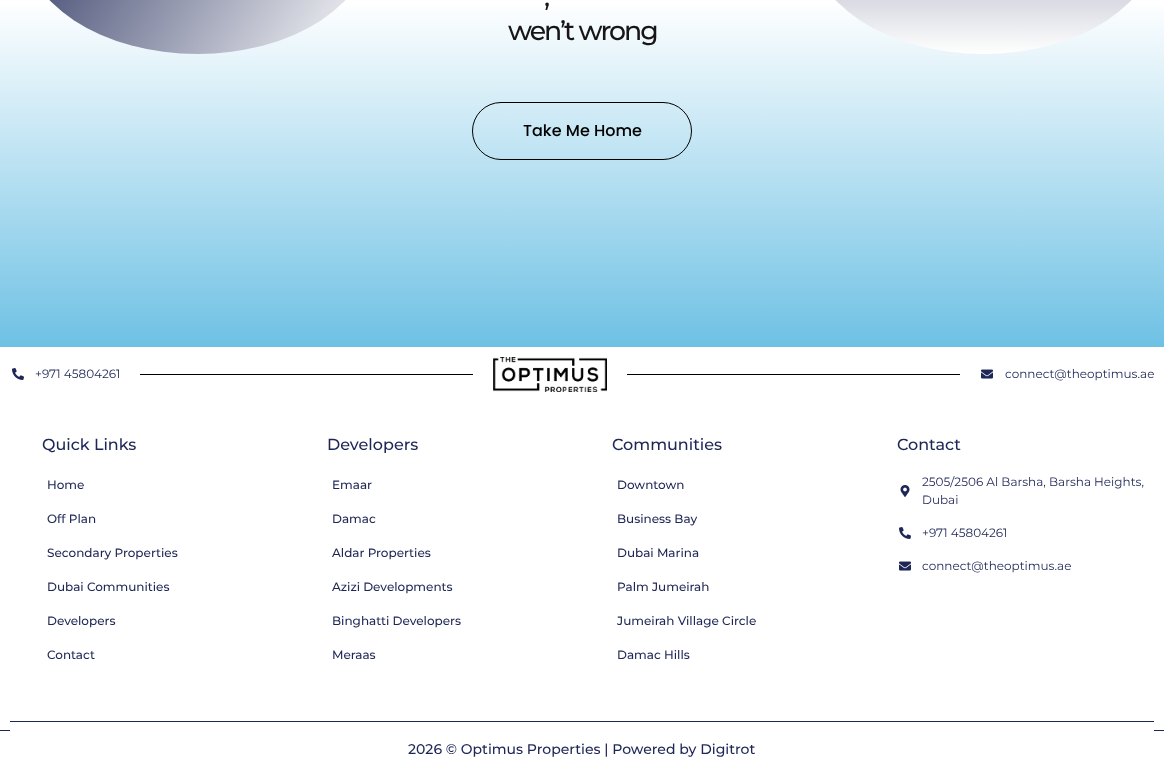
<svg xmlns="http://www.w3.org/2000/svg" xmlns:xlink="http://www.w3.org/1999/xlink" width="1164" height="771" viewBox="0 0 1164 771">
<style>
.cls-1{font:500 26.75px Montserrat;letter-spacing:-2px;fill:#171515}
.cls-2{font:500 16px Poppins;fill:#000000}
.cls-3{font:12px Montserrat;fill:#1d2655}
.cls-4{font:500 16px Montserrat;fill:#1d2655}
.cls-5{font:500 12px Montserrat;fill:#1d2655}
.cls-6{font:500 14px Montserrat;fill:#1d2655}
</style>
<defs>
<linearGradient id="g1" gradientUnits="userSpaceOnUse" x1="582" y1="-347" x2="582" y2="347"><stop offset="0.5" stop-color="#ffffff"/><stop offset="1" stop-color="#6ec1e4"/></linearGradient>
<linearGradient id="g2" gradientUnits="userSpaceOnUse" x1="-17" y1="-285" x2="412" y2="-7"><stop offset="0.2" stop-color="#1d2655"/><stop offset="1" stop-color="#ffffff"/></linearGradient>
<linearGradient id="g3" gradientUnits="userSpaceOnUse" x1="984" y1="-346" x2="984" y2="54"><stop offset="0.2" stop-color="#1d2655"/><stop offset="1" stop-color="#ffffff"/></linearGradient>
</defs>
<rect width="100%" height="100%" fill="#ffffff"/>
<rect fill="url(#g1)" x="0" y="6" width="1164" height="341"/>
<rect fill="url(#g2)" x="23" y="-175" width="349" height="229" rx="174.5"/>
<rect fill="url(#g3)" x="809" y="-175" width="349" height="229" rx="174.5"/>
<rect fill="none" stroke="#000000" x="472.5" y="102.5" width="219" height="57" rx="28.5"/>
<image xlink:href="image0.png" x="12" y="368" width="12" height="12"/>
<rect fill="#000000" x="140" y="374" width="333" height="1"/>
<image xlink:href="image1.png" x="493" y="357" width="114" height="35"/>
<rect fill="#000000" x="627" y="374" width="333" height="1"/>
<image xlink:href="image2.png" x="981" y="369" width="12" height="10"/>
<image xlink:href="image3.png" x="900" y="485" width="10" height="12"/>
<image xlink:href="image0.png" x="899" y="527" width="12" height="12"/>
<image xlink:href="image2.png" x="899" y="561" width="12" height="10"/>
<rect fill="#1d2655" x="0" y="730" width="1164" height="1"/>
<rect fill="#ffffff" x="10" y="730" width="1144" height="1"/>
<rect fill="#1d2655" x="10" y="721" width="1144" height="1"/>
<text class="cls-1" x="544" y="6">,</text>
<text class="cls-1" x="508" y="40">wen’t wrong</text>
<text class="cls-2" x="523" y="136">Take Me Home</text>
<text class="cls-3" x="35" y="378">+971 45804261</text>
<text class="cls-3" x="1005" y="378">connect@theoptimus.ae</text>
<text class="cls-4" x="42" y="450">Quick Links</text>
<text class="cls-5" x="47" y="489">Home</text>
<text class="cls-5" x="47" y="523">Off Plan</text>
<text class="cls-5" x="47" y="557">Secondary Properties</text>
<text class="cls-5" x="47" y="591">Dubai Communities</text>
<text class="cls-5" x="47" y="625">Developers</text>
<text class="cls-5" x="47" y="659">Contact</text>
<text class="cls-4" x="327" y="450">Developers</text>
<text class="cls-5" x="332" y="489">Emaar</text>
<text class="cls-5" x="332" y="523">Damac</text>
<text class="cls-5" x="332" y="557">Aldar Properties</text>
<text class="cls-5" x="332" y="591">Azizi Developments</text>
<text class="cls-5" x="332" y="625">Binghatti Developers</text>
<text class="cls-5" x="332" y="659">Meraas</text>
<text class="cls-4" x="612" y="450">Communities</text>
<text class="cls-5" x="617" y="489">Downtown</text>
<text class="cls-5" x="617" y="523">Business Bay</text>
<text class="cls-5" x="617" y="557">Dubai Marina</text>
<text class="cls-5" x="617" y="591">Palm Jumeirah</text>
<text class="cls-5" x="617" y="625">Jumeirah Village Circle</text>
<text class="cls-5" x="617" y="659">Damac Hills</text>
<text class="cls-4" x="897" y="450">Contact</text>
<text class="cls-3"><tspan x="922" y="486">2505/2506 Al Barsha, Barsha Heights,</tspan><tspan x="922" y="504">Dubai</tspan></text>
<text class="cls-3" x="922" y="537">+971 45804261</text>
<text class="cls-3" x="922" y="570">connect@theoptimus.ae</text>
<text class="cls-6" x="408" y="754">2026 © Optimus Properties | Powered by Digitrot</text>
</svg>
